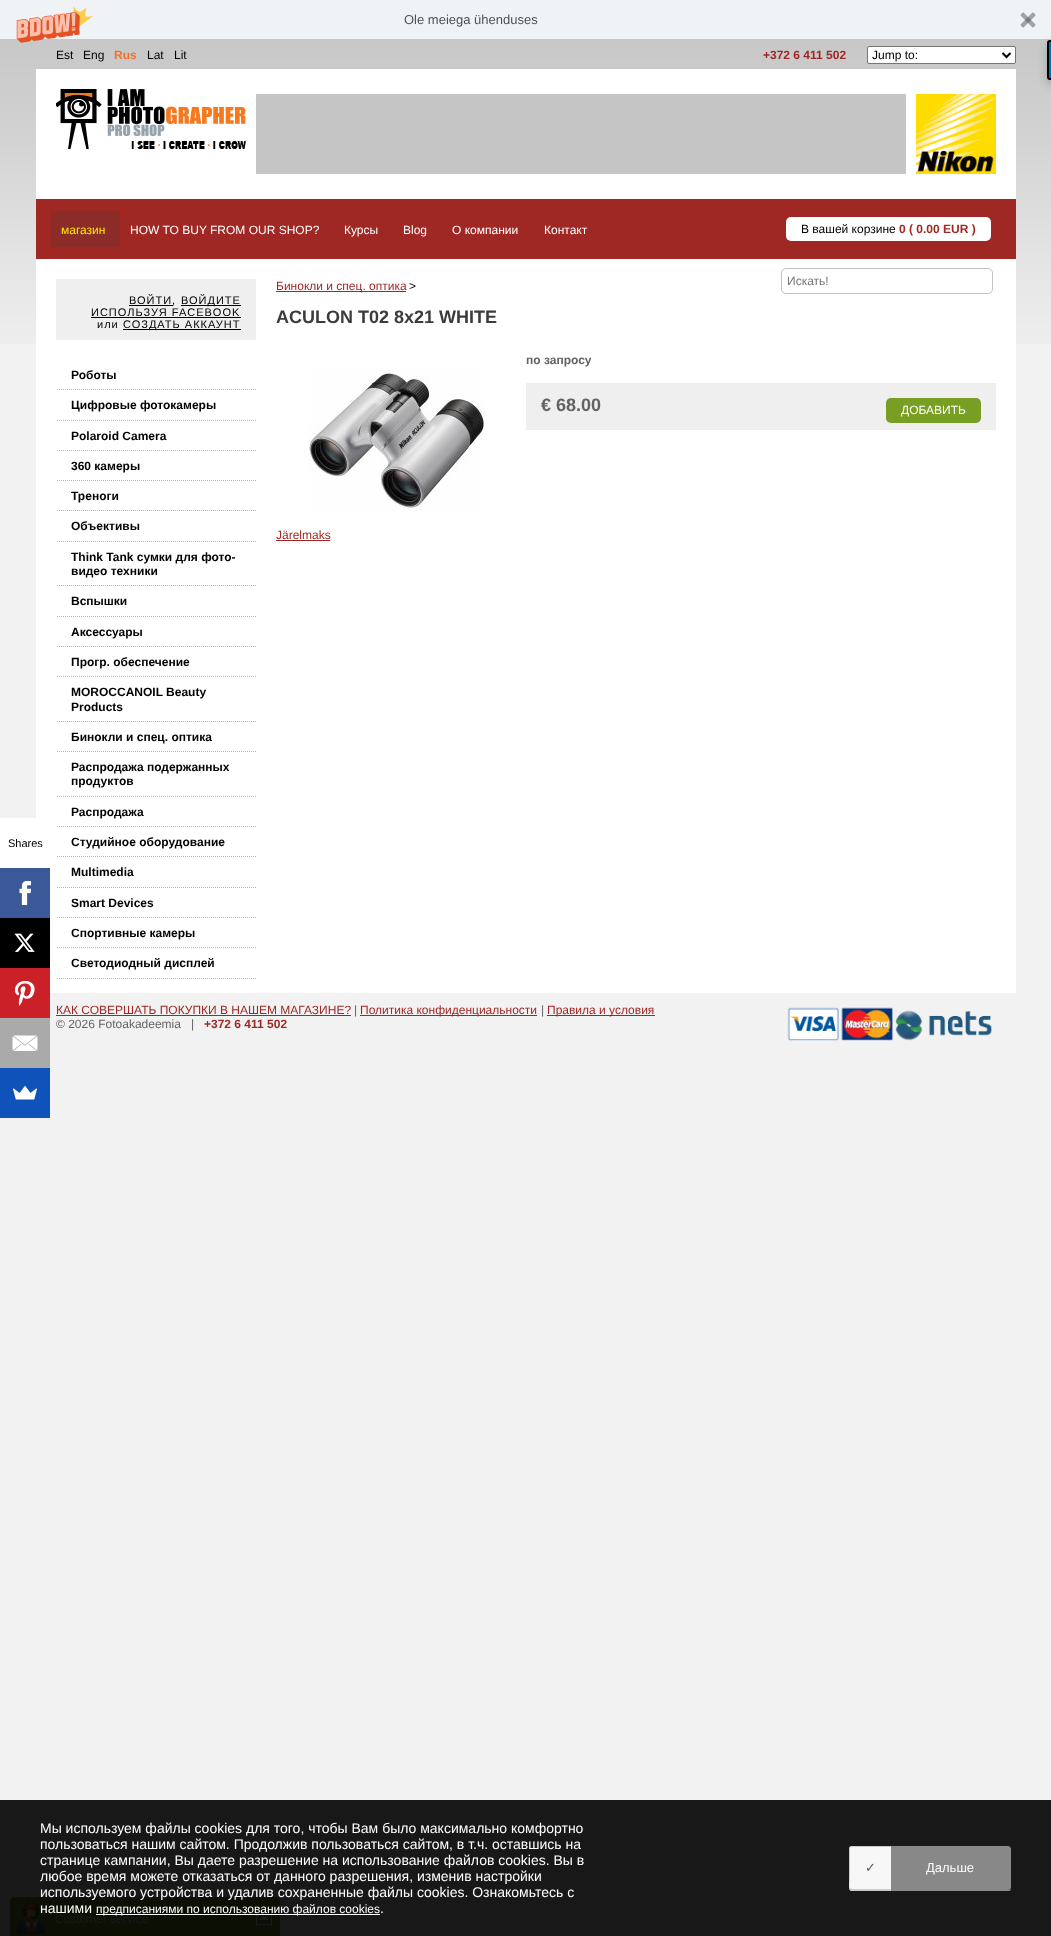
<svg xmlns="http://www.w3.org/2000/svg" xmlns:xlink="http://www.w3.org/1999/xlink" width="1051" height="1936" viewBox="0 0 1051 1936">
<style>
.cls-1{font:13px Liberation Sans;fill:#495259}
.cls-2{font:12px Liberation Sans;fill:#000000}
.cls-3{font:bold 12px Liberation Sans;fill:#ee7229}
.cls-4{font:bold 12px Liberation Sans;fill:#9f2824}
.cls-5{font:12px Liberation Sans;fill:#ffe600}
.cls-6{font:12px Liberation Sans;fill:#ffffff}
.cls-7{font:12px Liberation Sans;fill:#757575}
.cls-8{font:11px Liberation Sans;fill:#000000}
.cls-9{font:11px Liberation Sans;letter-spacing:1px;fill:#000000}
.cls-10{font:bold 12px Liberation Sans;fill:#000000}
.cls-11{font:12px Liberation Sans;fill:#9f2824}
.cls-12{font:bold 18px Liberation Sans;fill:#3c3c3e}
.cls-13{font:bold 12px Liberation Sans;fill:#636363}
.cls-14{font:bold 18px Liberation Sans;fill:#636363}
.cls-15{font:12px Liberation Sans;fill:#636363}
.cls-16{font:14px Liberation Sans;fill:#ffffff}
.cls-17{font:13px DejaVu Sans;fill:#555555}
.cls-18{font:13px Liberation Sans;fill:#ffffff}
.cls-19{font:12px Liberation Sans;fill:#191919}
</style>
<rect width="100%" height="100%" fill="#f2f2f2"/>
<rect fill="#181818" x="0" y="1800" width="1051" height="136"/>
<image xlink:href="image0.png" x="0" y="39" width="1051" height="305"/>
<rect fill="#f0f3f5" x="0" y="0" width="1051" height="39"/>
<image xlink:href="image1.png" x="16" y="6" width="78" height="37"/>
<image xlink:href="image2.png" x="1020" y="12" width="16" height="16"/>
<rect fill="#ffffff" stroke="#767676" x="867.5" y="46.5" width="148" height="17" rx="1.5"/>
<path fill="none" stroke="#000000" stroke-width="2" d="M1002.5 53L1006.5 57L1010.5 53"/>
<rect fill="#ffffff" x="36" y="69" width="980" height="130"/>
<image xlink:href="image3.png" x="56" y="89" width="190" height="61"/>
<rect fill="#c5c5c5" x="256" y="94" width="650" height="80"/>
<image xlink:href="image4.png" x="916" y="94" width="80" height="80"/>
<rect fill="#9f2824" x="36" y="199" width="980" height="60"/>
<rect fill="#8b2c29" x="51" y="211" width="69" height="36"/>
<rect fill="#ffffff" x="786" y="217" width="205" height="24" rx="5"/>
<rect fill="#ffffff" x="36" y="259" width="980" height="734"/>
<rect fill="none" stroke="#c1c1c1" x="781.5" y="268.5" width="211" height="25" rx="4.5"/>
<rect fill="#000000" fill-opacity="0.2" filter="blur(5px)" x="1047" y="44" width="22" height="40" rx="3"/>
<path fill="#0073b7" stroke="#000000" stroke-width="2" d="M1050 41H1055V79H1050C1049 79 1048 78 1048 77V43C1048 42 1049 41 1050 41Z"/>
<rect fill="#ffffff" x="0" y="818" width="36" height="50"/>
<rect fill="#3b5998" x="0" y="868" width="50" height="50"/>
<image xlink:href="image5.png" x="19" y="881" width="12" height="24"/>
<rect fill="#000000" x="0" y="918" width="50" height="50"/>
<image xlink:href="image6.png" x="14" y="933" width="21" height="19"/>
<rect fill="#cb2027" x="0" y="968" width="50" height="50"/>
<image xlink:href="image7.png" x="15" y="981" width="20" height="25"/>
<rect fill="#aaaaaa" x="0" y="1018" width="50" height="50"/>
<image xlink:href="image8.png" x="12" y="1035" width="26" height="16"/>
<rect fill="#0f52ba" x="0" y="1068" width="50" height="50"/>
<image xlink:href="image9.png" x="13" y="1086" width="24" height="14"/>
<rect fill="#efefef" x="56" y="279" width="200" height="61"/>
<rect fill="#000000" x="129" y="305" width="44" height="1"/>
<rect fill="#000000" x="181" y="305" width="60" height="1"/>
<rect fill="#000000" x="91" y="317" width="150" height="1"/>
<rect fill="#000000" x="123" y="329" width="118" height="1"/>
<image xlink:href="image10.png" x="57" y="389" width="199" height="1"/>
<image xlink:href="image10.png" x="57" y="420" width="199" height="1"/>
<image xlink:href="image10.png" x="57" y="450" width="199" height="1"/>
<image xlink:href="image10.png" x="57" y="480" width="199" height="1"/>
<image xlink:href="image10.png" x="57" y="510" width="199" height="1"/>
<image xlink:href="image10.png" x="57" y="541" width="199" height="1"/>
<image xlink:href="image10.png" x="57" y="585" width="199" height="1"/>
<image xlink:href="image10.png" x="57" y="616" width="199" height="1"/>
<image xlink:href="image10.png" x="57" y="646" width="199" height="1"/>
<image xlink:href="image10.png" x="57" y="676" width="199" height="1"/>
<image xlink:href="image10.png" x="57" y="721" width="199" height="1"/>
<image xlink:href="image10.png" x="57" y="751" width="199" height="1"/>
<image xlink:href="image10.png" x="57" y="796" width="199" height="1"/>
<image xlink:href="image10.png" x="57" y="826" width="199" height="1"/>
<image xlink:href="image10.png" x="57" y="856" width="199" height="1"/>
<image xlink:href="image10.png" x="57" y="887" width="199" height="1"/>
<image xlink:href="image10.png" x="57" y="917" width="199" height="1"/>
<image xlink:href="image10.png" x="57" y="947" width="199" height="1"/>
<image xlink:href="image10.png" x="57" y="978" width="199" height="1"/>
<rect fill="#9f2824" x="276" y="291" width="130" height="1"/>
<rect fill="#efefef" x="526" y="383" width="470" height="47"/>
<rect fill="#789f24" x="886" y="398" width="95" height="25" rx="5"/>
<image xlink:href="image11.png" x="308" y="368" width="176" height="143"/>
<rect fill="#9f2824" x="276" y="540" width="54" height="1"/>
<rect fill="#9f2824" x="56" y="1015" width="295" height="1"/>
<rect fill="#9f2824" x="360" y="1015" width="177" height="1"/>
<rect fill="#9f2824" x="547" y="1015" width="108" height="1"/>
<image xlink:href="image12.png" x="787" y="1007" width="205" height="34"/>
<path fill="#888888" d="M849 1887C849 1889 850 1891 852 1891H1009C1011 1891 1011 1889 1011 1887C1011 1889 1010 1890 1008 1890H852C850 1890 849 1889 849 1887Z"/>
<rect fill="#888888" stroke="#888888" x="849.5" y="1846.5" width="161" height="43" rx="2.5"/>
<path fill="#cccccc" d="M849 1887V1888C849 1890 850 1891 852 1891H891V1890H852C850 1890 849 1889 849 1887Z"/>
<path fill="#f7f7f7" d="M852 1846H891V1890H852C850.5 1890 849 1888.5 849 1887V1849C849 1847.5 850.5 1846 852 1846Z"/>
<path fill="#cccccc" fill-rule="evenodd" d="M852 1846H891V1890H852C850 1890 849 1889 849 1887V1849C849 1847 850 1846 852 1846ZM852 1847H891V1889H858C846 1889 850 1889 850 1874V1848Z"/>
<path fill="#0c1004" d="M15 1897H275C278 1897 280 1899 280 1902V1936H10V1902C10 1899 12 1897 15 1897Z"/>
<image xlink:href="image13.png" x="15" y="1902" width="32" height="32"/>
<image xlink:href="image14.png" x="256" y="1910" width="16" height="15"/>
<text class="cls-1" x="404" y="24">Ole meiega ühenduses</text>
<text class="cls-2" x="56" y="59">Est</text>
<text class="cls-2" x="83" y="59">Eng</text>
<text class="cls-3" x="114" y="59">Rus</text>
<text class="cls-2" x="147" y="59">Lat</text>
<text class="cls-2" x="174" y="59">Lit</text>
<text class="cls-4" x="763" y="59">+372 6 411 502</text>
<text class="cls-2" x="872" y="59">Jump to:</text>
<text class="cls-5" x="61" y="234">магазин</text>
<text class="cls-6" x="130" y="234">HOW TO BUY FROM OUR SHOP?</text>
<text class="cls-6" x="344" y="234">Курсы</text>
<text class="cls-6" x="403" y="234">Blog</text>
<text class="cls-6" x="452" y="234">О компании</text>
<text class="cls-6" x="544" y="234">Контакт</text>
<text class="cls-2" x="801" y="233">В вашей корзине</text>
<text class="cls-4" x="899" y="233">0 ( 0.00 EUR )</text>
<text class="cls-7" x="787" y="285">Искать!</text>
<text class="cls-8" x="8" y="847">Shares</text>
<text class="cls-9" x="129" y="304">ВОЙТИ,</text>
<text class="cls-9" x="181" y="304">ВОЙДИТЕ</text>
<text class="cls-9" x="91" y="316">ИСПОЛЬЗУЯ FACEBOOK</text>
<text class="cls-9" x="97" y="328">или</text>
<text class="cls-9" x="123" y="328">СОЗДАТЬ АККАУНТ</text>
<text class="cls-10" x="71" y="379">Роботы</text>
<text class="cls-10" x="71" y="409">Цифровые фотокамеры</text>
<text class="cls-10" x="71" y="440">Polaroid Camera</text>
<text class="cls-10" x="71" y="470">360 камеры</text>
<text class="cls-10" x="71" y="500">Треноги</text>
<text class="cls-10" x="71" y="530">Объективы</text>
<text class="cls-10"><tspan x="71" y="561">Think Tank cумки для фото-</tspan><tspan x="71" y="575">видео техники</tspan></text>
<text class="cls-10" x="71" y="605">Вспышки</text>
<text class="cls-10" x="71" y="636">Аксессуары</text>
<text class="cls-10" x="71" y="666">Прогр. обеспечение</text>
<text class="cls-10"><tspan x="71" y="696">MOROCCANOIL Beauty</tspan><tspan x="71" y="711">Products</tspan></text>
<text class="cls-10" x="71" y="741">Бинокли и спец. оптика</text>
<text class="cls-10"><tspan x="71" y="771">Распродажа подержанных</tspan><tspan x="71" y="785">продуктов</tspan></text>
<text class="cls-10" x="71" y="816">Распродажа</text>
<text class="cls-10" x="71" y="846">Студийное оборудование</text>
<text class="cls-10" x="71" y="876">Multimedia</text>
<text class="cls-10" x="71" y="907">Smart Devices</text>
<text class="cls-10" x="71" y="937">Спортивные камеры</text>
<text class="cls-10" x="71" y="967">Светодиодный дисплей</text>
<text class="cls-11" x="276" y="290">Бинокли и спец. оптика</text>
<text class="cls-2" x="409" y="290">&gt;</text>
<text class="cls-12" x="276" y="323">ACULON T02 8x21 WHITE</text>
<text class="cls-13" x="526" y="364">по запросу</text>
<text class="cls-14" x="541" y="411">€ 68.00</text>
<text class="cls-6" x="901" y="414">ДОБАВИТЬ</text>
<text class="cls-11" x="276" y="539">Järelmaks</text>
<text class="cls-11" x="56" y="1014">КАК СОВЕРШАТЬ ПОКУПКИ В НАШЕМ МАГАЗИНЕ?</text>
<text class="cls-15" x="354" y="1014">|</text>
<text class="cls-11" x="360" y="1014">Политика конфиденциальности</text>
<text class="cls-15" x="541" y="1014">|</text>
<text class="cls-11" x="547" y="1014">Правила и условия</text>
<text class="cls-15" xml:space="preserve" x="56" y="1028">© 2026 Fotoakadeemia   |</text>
<text class="cls-4" x="204" y="1028">+372 6 411 502</text>
<text class="cls-16"><tspan x="40" y="1833">Мы используем файлы cookies для того, чтобы Вам было максимально комфортно</tspan><tspan x="40" y="1849">пользоваться нашим сайтом. Продолжив пользоваться сайтом, в т.ч. оставшись на</tspan><tspan x="40" y="1865">странице кампании, Вы даете разрешение на использование файлов cookies. Вы в</tspan><tspan x="40" y="1881">любое время можете отказаться от данного разрешения, изменив настройки</tspan><tspan x="40" y="1897">используемого устройства и удалив сохраненные файлы cookies. Ознакомьтесь с</tspan><tspan x="40" y="1913">нашими</tspan></text>
<text class="cls-16" x="380" y="1913">.</text>
<text class="cls-17" x="865" y="1872">✓</text>
<text class="cls-18" x="926" y="1872">Дальше</text>
<text class="cls-19" x="55" y="1923">Customer service</text>
<rect fill="#ffffff" x="96" y="1914" width="284" height="1"/>
<text class="cls-6" x="96" y="1913">предписаниями по использованию файлов cookies</text>
</svg>
